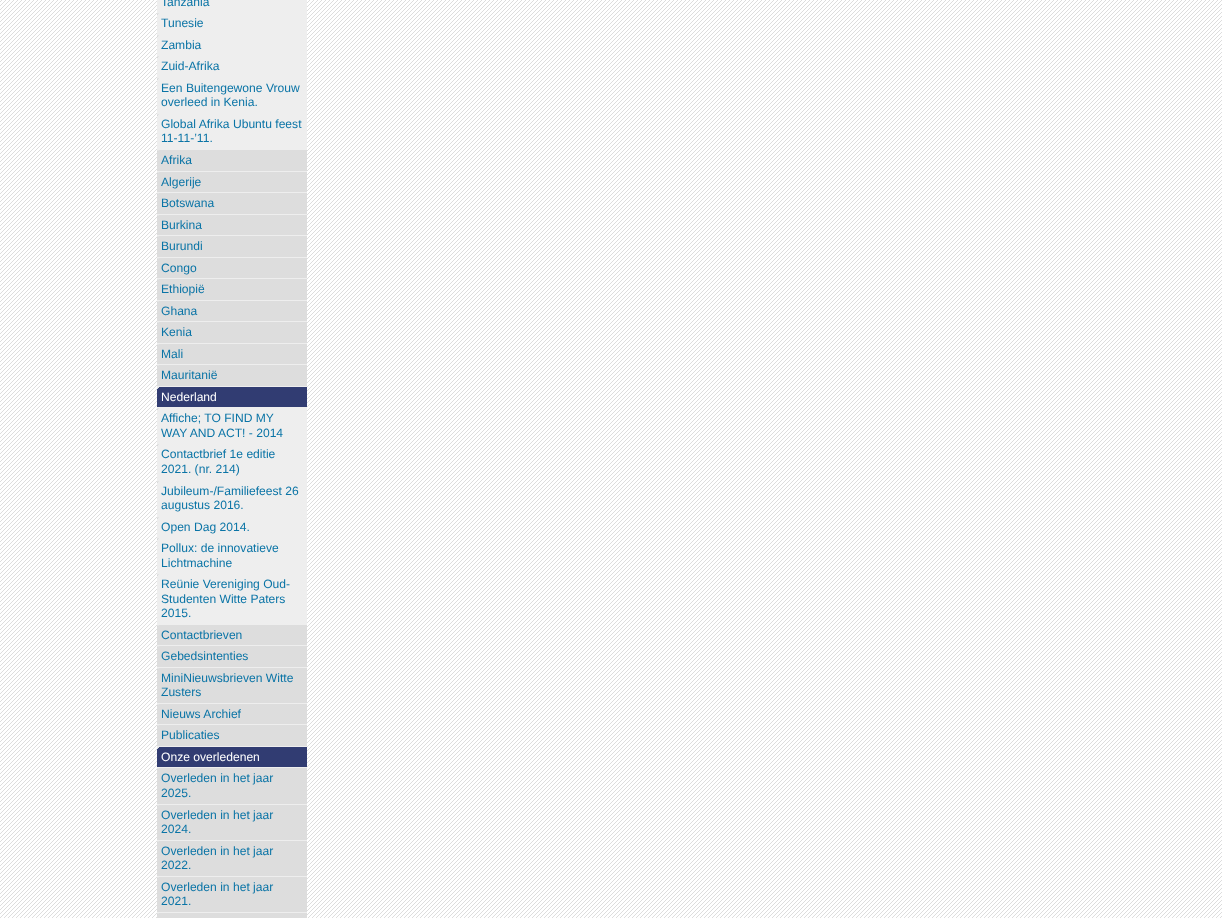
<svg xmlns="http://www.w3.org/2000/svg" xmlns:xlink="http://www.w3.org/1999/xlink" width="1222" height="918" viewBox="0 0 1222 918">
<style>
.cls-1{font:12.1px Liberation Sans;fill:#0a74a6}
.cls-2{font:12.1px Liberation Sans;fill:#ffffff}
</style>
<rect width="100%" height="100%" fill="#dddddd"/>
<image xlink:href="image0.png" x="0" y="0" width="1222" height="918"/>
<rect fill="#eeeeee" x="157" y="0" width="150" height="150"/>
<image xlink:href="image1.png" x="157" y="13" width="2" height="2"/>
<image xlink:href="image1.png" x="157" y="35" width="2" height="2"/>
<image xlink:href="image1.png" x="157" y="56" width="2" height="2"/>
<image xlink:href="image1.png" x="157" y="78" width="2" height="2"/>
<image xlink:href="image1.png" x="157" y="114" width="2" height="2"/>
<rect fill="#dddddd" x="157" y="150" width="150" height="21"/>
<image xlink:href="image2.png" x="157" y="150" width="2" height="2"/>
<rect fill="#eeeeee" x="157" y="171" width="150" height="1"/>
<rect fill="#dddddd" x="157" y="172" width="150" height="20"/>
<image xlink:href="image2.png" x="157" y="172" width="2" height="2"/>
<rect fill="#eeeeee" x="157" y="192" width="150" height="1"/>
<rect fill="#dddddd" x="157" y="193" width="150" height="21"/>
<image xlink:href="image2.png" x="157" y="193" width="2" height="2"/>
<rect fill="#eeeeee" x="157" y="214" width="150" height="1"/>
<rect fill="#dddddd" x="157" y="215" width="150" height="20"/>
<image xlink:href="image2.png" x="157" y="215" width="2" height="2"/>
<rect fill="#eeeeee" x="157" y="235" width="150" height="1"/>
<rect fill="#dddddd" x="157" y="236" width="150" height="21"/>
<image xlink:href="image2.png" x="157" y="236" width="2" height="2"/>
<rect fill="#eeeeee" x="157" y="257" width="150" height="1"/>
<rect fill="#dddddd" x="157" y="258" width="150" height="20"/>
<image xlink:href="image2.png" x="157" y="258" width="2" height="2"/>
<rect fill="#eeeeee" x="157" y="278" width="150" height="1"/>
<rect fill="#dddddd" x="157" y="279" width="150" height="21"/>
<image xlink:href="image2.png" x="157" y="279" width="2" height="2"/>
<rect fill="#eeeeee" x="157" y="300" width="150" height="1"/>
<rect fill="#dddddd" x="157" y="301" width="150" height="20"/>
<image xlink:href="image2.png" x="157" y="301" width="2" height="2"/>
<rect fill="#eeeeee" x="157" y="321" width="150" height="1"/>
<rect fill="#dddddd" x="157" y="322" width="150" height="21"/>
<image xlink:href="image2.png" x="157" y="322" width="2" height="2"/>
<rect fill="#eeeeee" x="157" y="343" width="150" height="1"/>
<rect fill="#dddddd" x="157" y="344" width="150" height="20"/>
<image xlink:href="image2.png" x="157" y="344" width="2" height="2"/>
<rect fill="#eeeeee" x="157" y="364" width="150" height="1"/>
<rect fill="#dddddd" x="157" y="365" width="150" height="21"/>
<image xlink:href="image2.png" x="157" y="365" width="2" height="2"/>
<rect fill="#eeeeee" x="157" y="386" width="150" height="1"/>
<rect fill="#313c72" x="157" y="387" width="150" height="20"/>
<image xlink:href="image3.png" x="157" y="387" width="2" height="2"/>
<rect fill="#eeeeee" x="157" y="407" width="150" height="218"/>
<image xlink:href="image1.png" x="157" y="408" width="2" height="2"/>
<image xlink:href="image1.png" x="157" y="444" width="2" height="2"/>
<image xlink:href="image1.png" x="157" y="481" width="2" height="2"/>
<image xlink:href="image1.png" x="157" y="517" width="2" height="2"/>
<image xlink:href="image1.png" x="157" y="538" width="2" height="2"/>
<image xlink:href="image1.png" x="157" y="574" width="2" height="2"/>
<rect fill="#dddddd" x="157" y="625" width="150" height="20"/>
<image xlink:href="image2.png" x="157" y="625" width="2" height="2"/>
<rect fill="#eeeeee" x="157" y="645" width="150" height="1"/>
<rect fill="#dddddd" x="157" y="646" width="150" height="21"/>
<image xlink:href="image2.png" x="157" y="646" width="2" height="2"/>
<rect fill="#eeeeee" x="157" y="667" width="150" height="1"/>
<rect fill="#dddddd" x="157" y="668" width="150" height="35"/>
<image xlink:href="image2.png" x="157" y="668" width="2" height="2"/>
<rect fill="#eeeeee" x="157" y="703" width="150" height="1"/>
<rect fill="#dddddd" x="157" y="704" width="150" height="20"/>
<image xlink:href="image2.png" x="157" y="704" width="2" height="2"/>
<rect fill="#eeeeee" x="157" y="724" width="150" height="1"/>
<rect fill="#dddddd" x="157" y="725" width="150" height="21"/>
<image xlink:href="image2.png" x="157" y="725" width="2" height="2"/>
<rect fill="#eeeeee" x="157" y="746" width="150" height="1"/>
<rect fill="#313c72" x="157" y="747" width="150" height="20"/>
<image xlink:href="image3.png" x="157" y="747" width="2" height="2"/>
<rect fill="#eeeeee" x="157" y="767" width="150" height="1"/>
<rect fill="#dddddd" x="157" y="768" width="150" height="36"/>
<image xlink:href="image2.png" x="157" y="768" width="2" height="2"/>
<rect fill="#eeeeee" x="157" y="804" width="150" height="1"/>
<rect fill="#dddddd" x="157" y="805" width="150" height="35"/>
<image xlink:href="image2.png" x="157" y="805" width="2" height="2"/>
<rect fill="#eeeeee" x="157" y="840" width="150" height="1"/>
<rect fill="#dddddd" x="157" y="841" width="150" height="35"/>
<image xlink:href="image2.png" x="157" y="841" width="2" height="2"/>
<rect fill="#eeeeee" x="157" y="876" width="150" height="1"/>
<rect fill="#dddddd" x="157" y="877" width="150" height="35"/>
<image xlink:href="image2.png" x="157" y="877" width="2" height="2"/>
<rect fill="#eeeeee" x="157" y="912" width="150" height="1"/>
<rect fill="#dddddd" x="157" y="913" width="150" height="5"/>
<image xlink:href="image2.png" x="157" y="913" width="2" height="2"/>
<text class="cls-1"><tspan x="161" y="6">Tanzania</tspan><tspan x="161" y="27">Tunesie</tspan><tspan x="161" y="49">Zambia</tspan><tspan x="161" y="70">Zuid-Afrika</tspan><tspan x="161" y="92">Een Buitengewone Vrouw</tspan><tspan x="161" y="106">overleed in Kenia.</tspan><tspan x="161" y="128">Global Afrika Ubuntu feest</tspan><tspan x="161" y="142">11-11-’11.</tspan><tspan x="161" y="164">Afrika</tspan><tspan x="161" y="186">Algerije</tspan><tspan x="161" y="207">Botswana</tspan><tspan x="161" y="229">Burkina</tspan><tspan x="161" y="250">Burundi</tspan><tspan x="161" y="272">Congo</tspan><tspan x="161" y="293">Ethiopië</tspan><tspan x="161" y="315">Ghana</tspan><tspan x="161" y="336">Kenia</tspan><tspan x="161" y="358">Mali</tspan><tspan x="161" y="379">Mauritanië</tspan></text>
<text class="cls-2" x="161" y="401">Nederland</text>
<text class="cls-1"><tspan x="161" y="422">Affiche; TO FIND MY</tspan><tspan x="161" y="437">WAY AND ACT! - 2014</tspan><tspan x="161" y="458">Contactbrief 1e editie</tspan><tspan x="161" y="473">2021. (nr. 214)</tspan><tspan x="161" y="495">Jubileum-/Familiefeest 26</tspan><tspan x="161" y="509">augustus 2016.</tspan><tspan x="161" y="531">Open Dag 2014.</tspan><tspan x="161" y="552">Pollux: de innovatieve</tspan><tspan x="161" y="567">Lichtmachine</tspan><tspan x="161" y="588">Reünie Vereniging Oud-</tspan><tspan x="161" y="603">Studenten Witte Paters</tspan><tspan x="161" y="617">2015.</tspan><tspan x="161" y="639">Contactbrieven</tspan><tspan x="161" y="660">Gebedsintenties</tspan><tspan x="161" y="682">MiniNieuwsbrieven Witte</tspan><tspan x="161" y="696">Zusters</tspan><tspan x="161" y="718">Nieuws Archief</tspan><tspan x="161" y="739">Publicaties</tspan></text>
<text class="cls-2" x="161" y="761">Onze overledenen</text>
<text class="cls-1"><tspan x="161" y="782">Overleden in het jaar</tspan><tspan x="161" y="797">2025.</tspan><tspan x="161" y="819">Overleden in het jaar</tspan><tspan x="161" y="833">2024.</tspan><tspan x="161" y="855">Overleden in het jaar</tspan><tspan x="161" y="869">2022.</tspan><tspan x="161" y="891">Overleden in het jaar</tspan><tspan x="161" y="905">2021.</tspan></text>
</svg>
